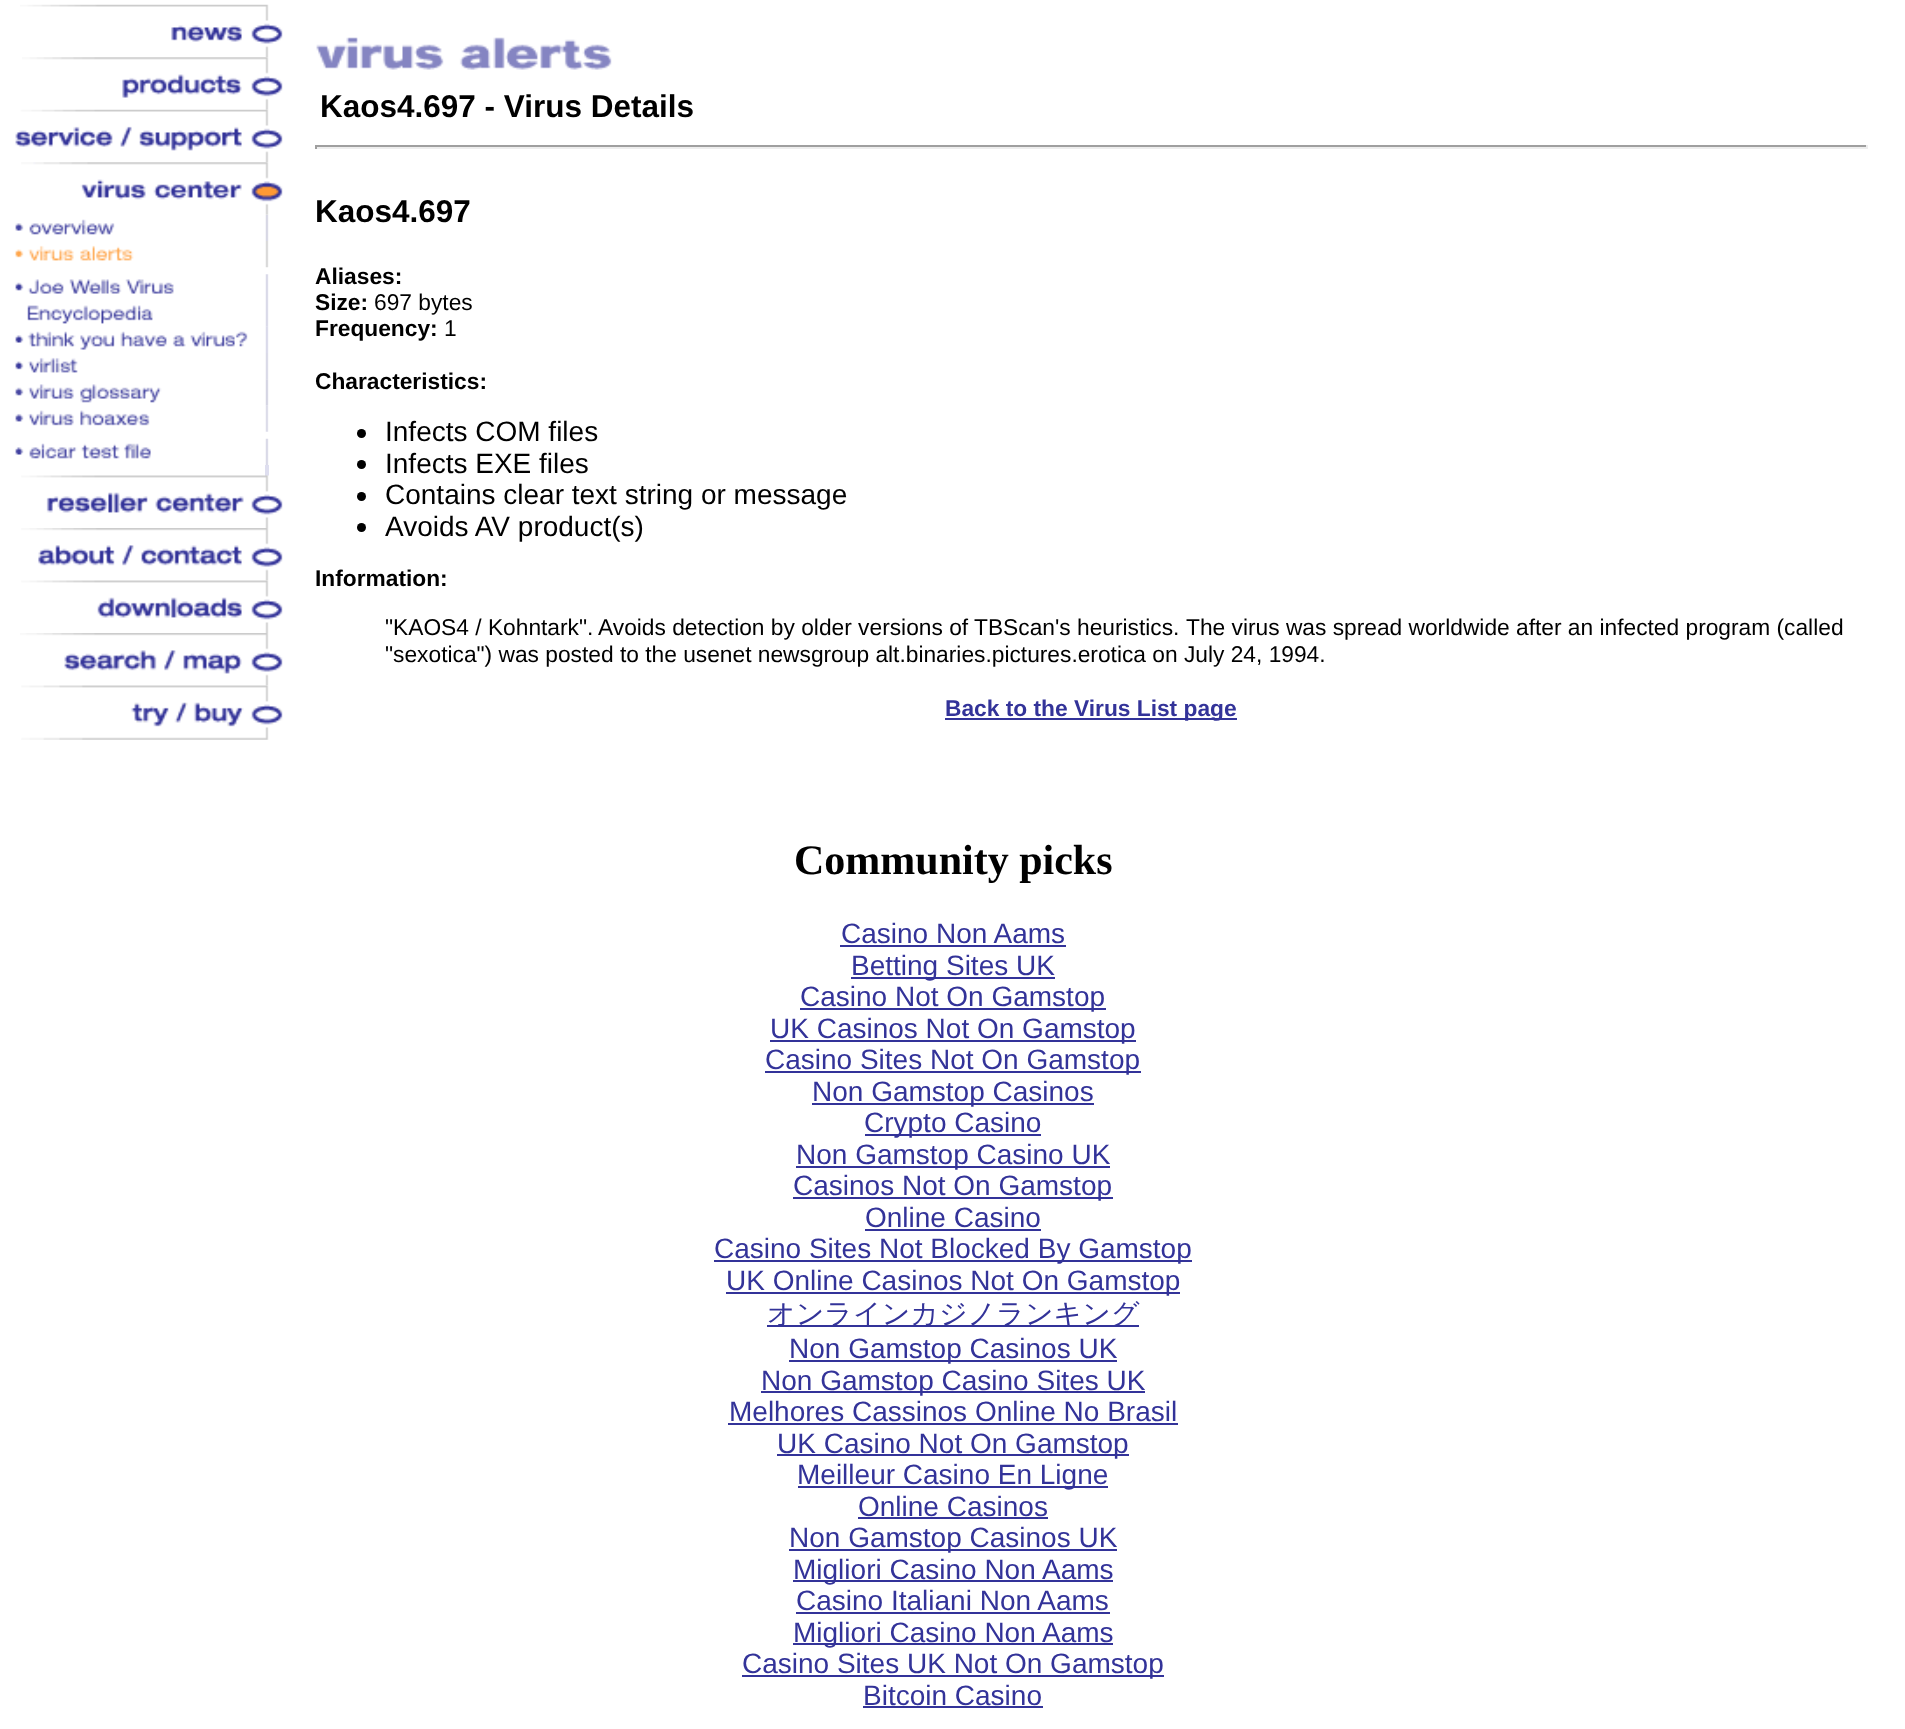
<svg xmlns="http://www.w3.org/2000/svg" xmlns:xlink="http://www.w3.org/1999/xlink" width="1905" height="1729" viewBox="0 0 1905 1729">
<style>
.cls-1{font:bold 31.5px Liberation Sans;fill:#000000}
.cls-2{font:bold 22.75px Liberation Sans;fill:#000000}
.cls-3{font:22.75px Liberation Sans;fill:#000000}
.cls-4{font:28px Liberation Sans;fill:#000000}
.cls-5{font:bold 22.75px Liberation Sans;fill:#333399}
.cls-6{font:bold 42px Liberation Serif;fill:#000000}
.cls-7{font:28px Liberation Sans;fill:#333399}
.cls-8{font:500 28px WenQuanYi Zen Hei;fill:#333399}
</style>
<rect width="100%" height="100%" fill="#ffffff"/>
<image xlink:href="image0.png" x="20" y="4" width="263" height="54"/>
<image xlink:href="image1.png" x="22" y="57" width="261" height="53"/>
<image xlink:href="image2.png" x="15" y="109" width="268" height="54"/>
<image xlink:href="image3.png" x="21" y="162" width="262" height="53"/>
<image xlink:href="image4.png" x="15" y="215" width="254" height="26"/>
<image xlink:href="image5.png" x="15" y="241" width="254" height="27"/>
<image xlink:href="image6.png" x="15" y="274" width="254" height="53"/>
<image xlink:href="image7.png" x="15" y="326" width="254" height="27"/>
<image xlink:href="image8.png" x="15" y="353" width="254" height="27"/>
<image xlink:href="image9.png" x="15" y="379" width="254" height="27"/>
<image xlink:href="image10.png" x="15" y="405" width="254" height="27"/>
<image xlink:href="image11.png" x="15" y="438" width="254" height="27"/>
<rect fill="#dedeef" x="265" y="465" width="4" height="11"/>
<image xlink:href="image12.png" x="21" y="475" width="262" height="53"/>
<image xlink:href="image13.png" x="21" y="528" width="262" height="53"/>
<image xlink:href="image14.png" x="21" y="580" width="262" height="53"/>
<image xlink:href="image15.png" x="20" y="633" width="263" height="53"/>
<image xlink:href="image16.png" x="21" y="685" width="262" height="55"/>
<image xlink:href="image17.png" x="316" y="37" width="296" height="33"/>
<rect fill="#9f9f9f" x="315" y="145" width="1552" height="2"/>
<rect fill="#eeeeee" x="1866" y="145" width="2" height="4"/>
<rect fill="#eeeeee" x="315" y="147" width="1552" height="2"/>
<rect fill="#9f9f9f" x="315" y="145" width="2" height="4"/>
<circle fill="#000000" cx="361.5" cy="433.5" r="4.5"/>
<circle fill="#000000" cx="361.5" cy="464.5" r="4.5"/>
<circle fill="#000000" cx="361.5" cy="496.5" r="4.5"/>
<circle fill="#000000" cx="361.5" cy="527.5" r="4.5"/>
<rect fill="#333399" x="945" y="718" width="292" height="2"/>
<rect fill="#333399" x="840" y="945" width="226" height="2"/>
<rect fill="#333399" x="851" y="977" width="204" height="2"/>
<rect fill="#333399" x="800" y="1008" width="306" height="2"/>
<rect fill="#333399" x="770" y="1040" width="366" height="2"/>
<rect fill="#333399" x="765" y="1071" width="376" height="2"/>
<rect fill="#333399" x="812" y="1103" width="282" height="2"/>
<rect fill="#333399" x="865" y="1134" width="176" height="2"/>
<rect fill="#333399" x="796" y="1166" width="314" height="2"/>
<rect fill="#333399" x="793" y="1197" width="320" height="2"/>
<rect fill="#333399" x="865" y="1229" width="176" height="2"/>
<rect fill="#333399" x="714" y="1260" width="478" height="2"/>
<rect fill="#333399" x="726" y="1292" width="454" height="2"/>
<rect fill="#333399" x="767" y="1325" width="372" height="2"/>
<rect fill="#333399" x="789" y="1360" width="328" height="2"/>
<rect fill="#333399" x="761" y="1391" width="384" height="2"/>
<rect fill="#333399" x="728" y="1423" width="450" height="2"/>
<rect fill="#333399" x="777" y="1454" width="352" height="2"/>
<rect fill="#333399" x="798" y="1486" width="310" height="2"/>
<rect fill="#333399" x="858" y="1517" width="190" height="2"/>
<rect fill="#333399" x="789" y="1549" width="328" height="2"/>
<rect fill="#333399" x="793" y="1580" width="320" height="2"/>
<rect fill="#333399" x="796" y="1612" width="314" height="2"/>
<rect fill="#333399" x="793" y="1643" width="320" height="2"/>
<rect fill="#333399" x="742" y="1675" width="422" height="2"/>
<rect fill="#333399" x="863" y="1706" width="180" height="2"/>
<text class="cls-1" x="320" y="117">Kaos4.697 - Virus Details</text>
<text class="cls-1" x="315" y="222">Kaos4.697</text>
<text class="cls-2"><tspan x="315" y="284">Aliases:</tspan><tspan x="315" y="310">Size:</tspan></text>
<text class="cls-3" x="374" y="310">697 bytes</text>
<text class="cls-2" x="315" y="336">Frequency:</text>
<text class="cls-3" x="444" y="336">1</text>
<text class="cls-2" x="315" y="389">Characteristics:</text>
<text class="cls-4"><tspan x="385" y="441">Infects COM files</tspan><tspan x="385" y="473">Infects EXE files</tspan><tspan x="385" y="504">Contains clear text string or message</tspan><tspan x="385" y="536">Avoids AV product(s)</tspan></text>
<text class="cls-2" x="315" y="586">Information:</text>
<text class="cls-3" x="385" y="635">"KAOS4 / Kohntark".</text>
<text class="cls-3" x="598" y="635">Avoids detection by older versions of TBScan's heuristics.</text>
<text class="cls-3" x="1186" y="635">The virus was spread worldwide after an infected program (called</text>
<text class="cls-3" x="385" y="662">"sexotica") was posted to the usenet newsgroup alt.binaries.pictures.erotica on July 24, 1994.</text>
<text class="cls-5" x="945" y="716">Back to the Virus List page</text>
<text class="cls-6" x="794" y="874">Community picks</text>
<text class="cls-7" x="841" y="943">Casino Non Aams</text>
<text class="cls-7" x="851" y="975">Betting Sites UK</text>
<text class="cls-7" x="800" y="1006">Casino Not On Gamstop</text>
<text class="cls-7" x="770" y="1038">UK Casinos Not On Gamstop</text>
<text class="cls-7" x="765" y="1069">Casino Sites Not On Gamstop</text>
<text class="cls-7" x="812" y="1101">Non Gamstop Casinos</text>
<text class="cls-7" x="864" y="1132">Crypto Casino</text>
<text class="cls-7" x="796" y="1164">Non Gamstop Casino UK</text>
<text class="cls-7" x="793" y="1195">Casinos Not On Gamstop</text>
<text class="cls-7" x="865" y="1227">Online Casino</text>
<text class="cls-7" x="714" y="1258">Casino Sites Not Blocked By Gamstop</text>
<text class="cls-7" x="726" y="1290">UK Online Casinos Not On Gamstop</text>
<text class="cls-8" x="767" y="1323">オンラインカジノランキング</text>
<text class="cls-7" x="789" y="1358">Non Gamstop Casinos UK</text>
<text class="cls-7" x="761" y="1390">Non Gamstop Casino Sites UK</text>
<text class="cls-7" x="729" y="1421">Melhores Cassinos Online No Brasil</text>
<text class="cls-7" x="777" y="1453">UK Casino Not On Gamstop</text>
<text class="cls-7" x="797" y="1484">Meilleur Casino En Ligne</text>
<text class="cls-7" x="858" y="1516">Online Casinos</text>
<text class="cls-7" x="789" y="1547">Non Gamstop Casinos UK</text>
<text class="cls-7" x="793" y="1579">Migliori Casino Non Aams</text>
<text class="cls-7" x="796" y="1610">Casino Italiani Non Aams</text>
<text class="cls-7" x="793" y="1642">Migliori Casino Non Aams</text>
<text class="cls-7" x="742" y="1673">Casino Sites UK Not On Gamstop</text>
<text class="cls-7" x="863" y="1705">Bitcoin Casino</text>
</svg>
